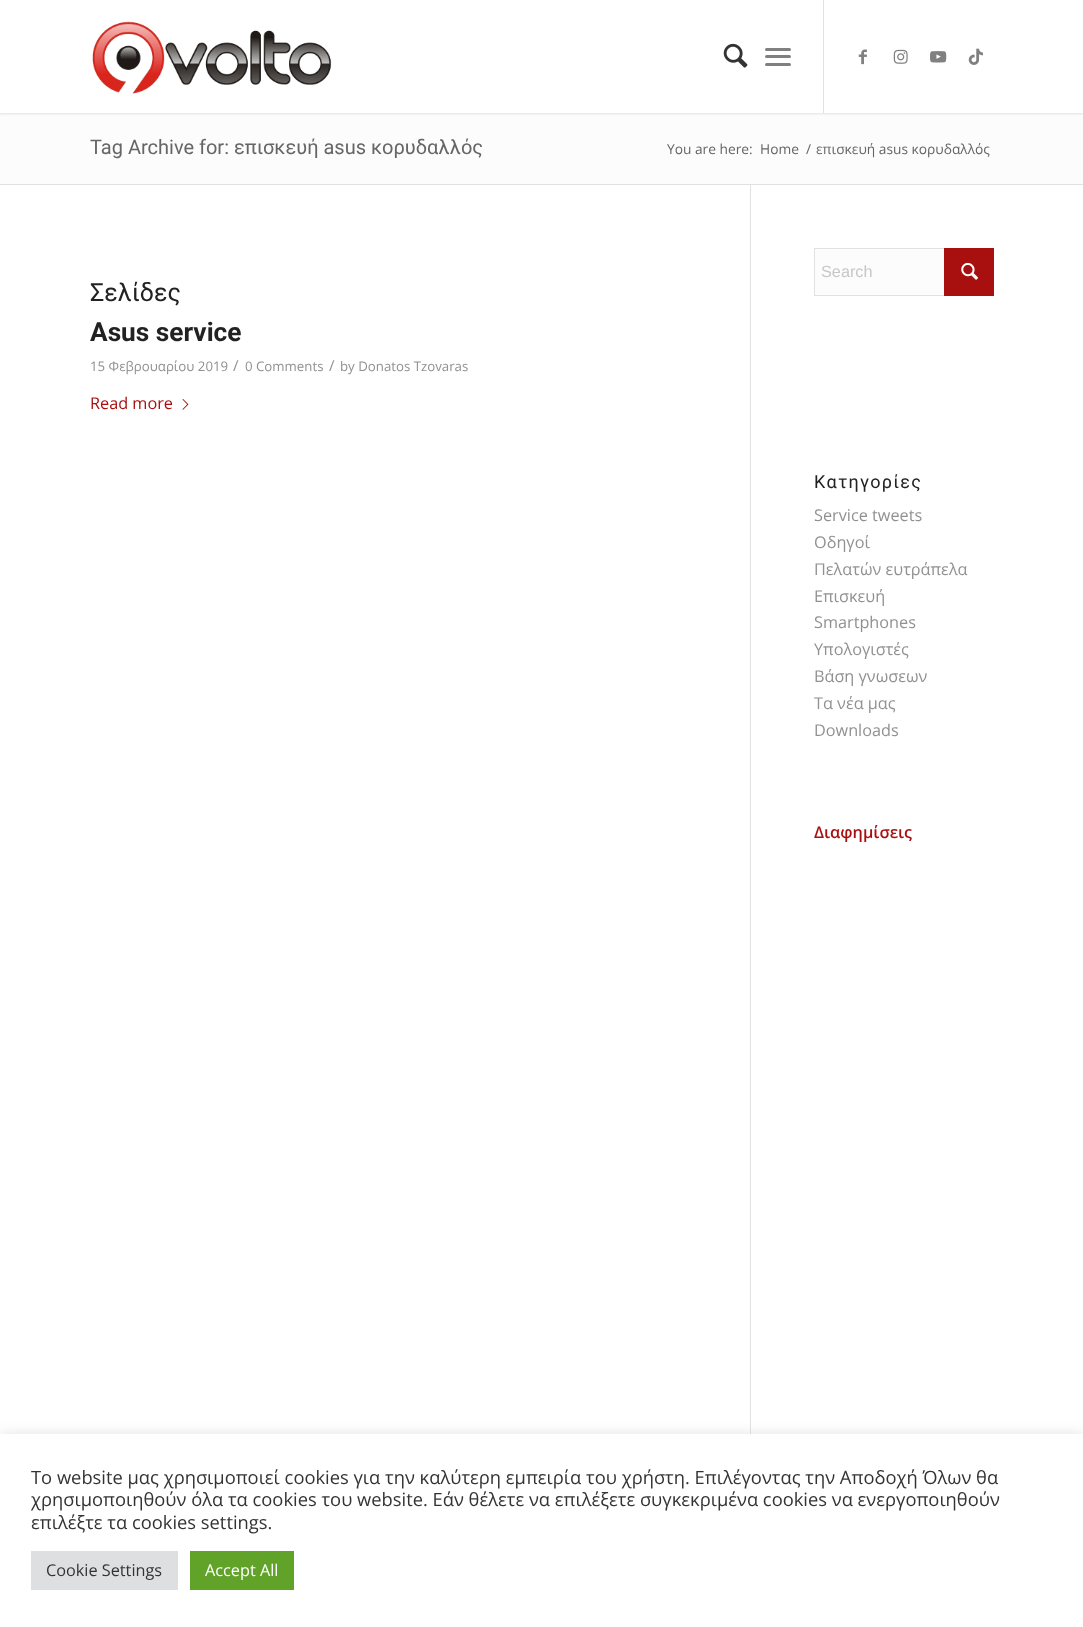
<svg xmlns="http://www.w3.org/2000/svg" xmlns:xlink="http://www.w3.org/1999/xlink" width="1083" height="1627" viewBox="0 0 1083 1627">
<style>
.cls-1{font:20px Roboto;fill:#666666}
.cls-2{font:13.75px Open Sans;fill:#666666}
.cls-3{font:25px Roboto;fill:#222222}
.cls-4{font:bold 26.25px Roboto;fill:#222222}
.cls-5{font:13.25px Open Sans;fill:#919191}
.cls-6{font:15px Open Sans;fill:#919191}
.cls-7{font:16.25px Open Sans;fill:#a81010}
.cls-8{font:16.25px Liberation Sans;fill:#c7c7c7}
.cls-9{font:18px Roboto;letter-spacing:1.25px;fill:#222222}
.cls-10{font:16.25px Open Sans;fill:#919191}
.cls-11{font:600 16.25px Open Sans;fill:#a81010}
.cls-12{font:18.33px Open Sans;fill:#333333}
.cls-13{font:16.25px Open Sans;fill:#333333}
.cls-14{font:16.25px Open Sans;fill:#ffffff}
</style>
<rect width="100%" height="100%" fill="#ffffff"/>
<rect fill="#fcfcfc" x="0" y="113" width="1083" height="71"/>
<rect fill="#000000" fill-opacity="0.1" filter="blur(1px)" x="-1" y="-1" width="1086" height="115"/>
<rect fill="#ffffff" x="0" y="0" width="1083" height="113"/>
<image xlink:href="image0.png" x="92" y="21" width="240" height="73"/>
<rect fill="#e1e1e1" x="823" y="0" width="1" height="113"/>
<image xlink:href="image1.png" x="723" y="43" width="25" height="25"/>
<rect fill="#808080" x="765" y="55" width="26" height="3" rx="1.5"/>
<rect fill="#808080" x="765" y="48" width="26" height="3" rx="1.5"/>
<rect fill="#808080" x="765" y="63" width="26" height="3" rx="1.5"/>
<image xlink:href="image2.png" x="858" y="49" width="9" height="16"/>
<image xlink:href="image3.png" x="893" y="49" width="15" height="15"/>
<image xlink:href="image4.png" x="930" y="51" width="17" height="12"/>
<image xlink:href="image5.png" x="968" y="48" width="15" height="17"/>
<rect fill="#e1e1e1" x="0" y="184" width="1083" height="1"/>
<image xlink:href="image6.png" x="182" y="399" width="7" height="11"/>
<rect fill="#e1e1e1" x="750" y="185" width="1" height="1249"/>
<rect fill="#fcfcfc" x="815" y="249" width="129" height="46"/>
<rect fill="none" stroke="#e1e1e1" x="814.5" y="248.5" width="179" height="47"/>
<rect fill="#a81010" x="944" y="248" width="50" height="48"/>
<image xlink:href="image7.png" x="961" y="262" width="17" height="18"/>
<rect fill="#acabab" fill-opacity="0.3" filter="blur(6px)" x="0" y="1433" width="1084" height="193"/>
<rect fill="#ffffff" x="0" y="1434" width="1083" height="193"/>
<rect fill="#dedfe0" x="31" y="1551" width="147" height="39"/>
<rect fill="#61a229" x="190" y="1551" width="104" height="39"/>
<text class="cls-1" x="90" y="154">Tag Archive for: επισκευή asus κορυδαλλός</text>
<text class="cls-2" x="667" y="154">You are here:</text>
<text class="cls-2" x="760" y="154">Home</text>
<text class="cls-2" x="806" y="154">/</text>
<text class="cls-2" x="816" y="154">επισκευή asus κορυδαλλός</text>
<text class="cls-3" x="90" y="301">Σελίδες</text>
<text class="cls-4" x="90" y="341">Asus service</text>
<text class="cls-5" x="90" y="371">15 Φεβρουαρίου 2019</text>
<text class="cls-6" x="233" y="371">/</text>
<text class="cls-5" x="245" y="371">0 Comments</text>
<text class="cls-6" x="329" y="371">/</text>
<text class="cls-5" x="340" y="371">by Donatos Tzovaras</text>
<text class="cls-7" x="90" y="409">Read more</text>
<text class="cls-8" x="821" y="277">Search</text>
<text class="cls-9" x="814" y="488">Kατηγορίες</text>
<text class="cls-10"><tspan x="814" y="521">Service tweets</tspan><tspan x="814" y="548">Οδηγοί</tspan><tspan x="814" y="575">Πελατών ευτράπελα</tspan><tspan x="814" y="602">Επισκευή</tspan><tspan x="814" y="628">Smartphones</tspan><tspan x="814" y="655">Υπολογιστές</tspan><tspan x="814" y="682">Bάση γνωσεων</tspan><tspan x="814" y="709">Τα νέα μας</tspan><tspan x="814" y="736">Downloads</tspan></text>
<text class="cls-11" x="814" y="838">Διαφημίσεις</text>
<text class="cls-12"><tspan x="31" y="1484">To website μας χρησιμοποιεί cookies για την καλύτερη εμπειρία του χρήστη. Επιλέγοντας την Αποδοχή Όλων θα</tspan><tspan x="31" y="1506">χρησιμοποιηθούν όλα τα cookies του website. Εάν θέλετε να επιλέξετε συγκεκριμένα cookies να ενεργοποιηθούν</tspan><tspan x="31" y="1529">επιλέξτε τα cookies settings.</tspan></text>
<text class="cls-13" x="46" y="1576">Cookie Settings</text>
<text class="cls-14" x="205" y="1576">Accept All</text>
</svg>
